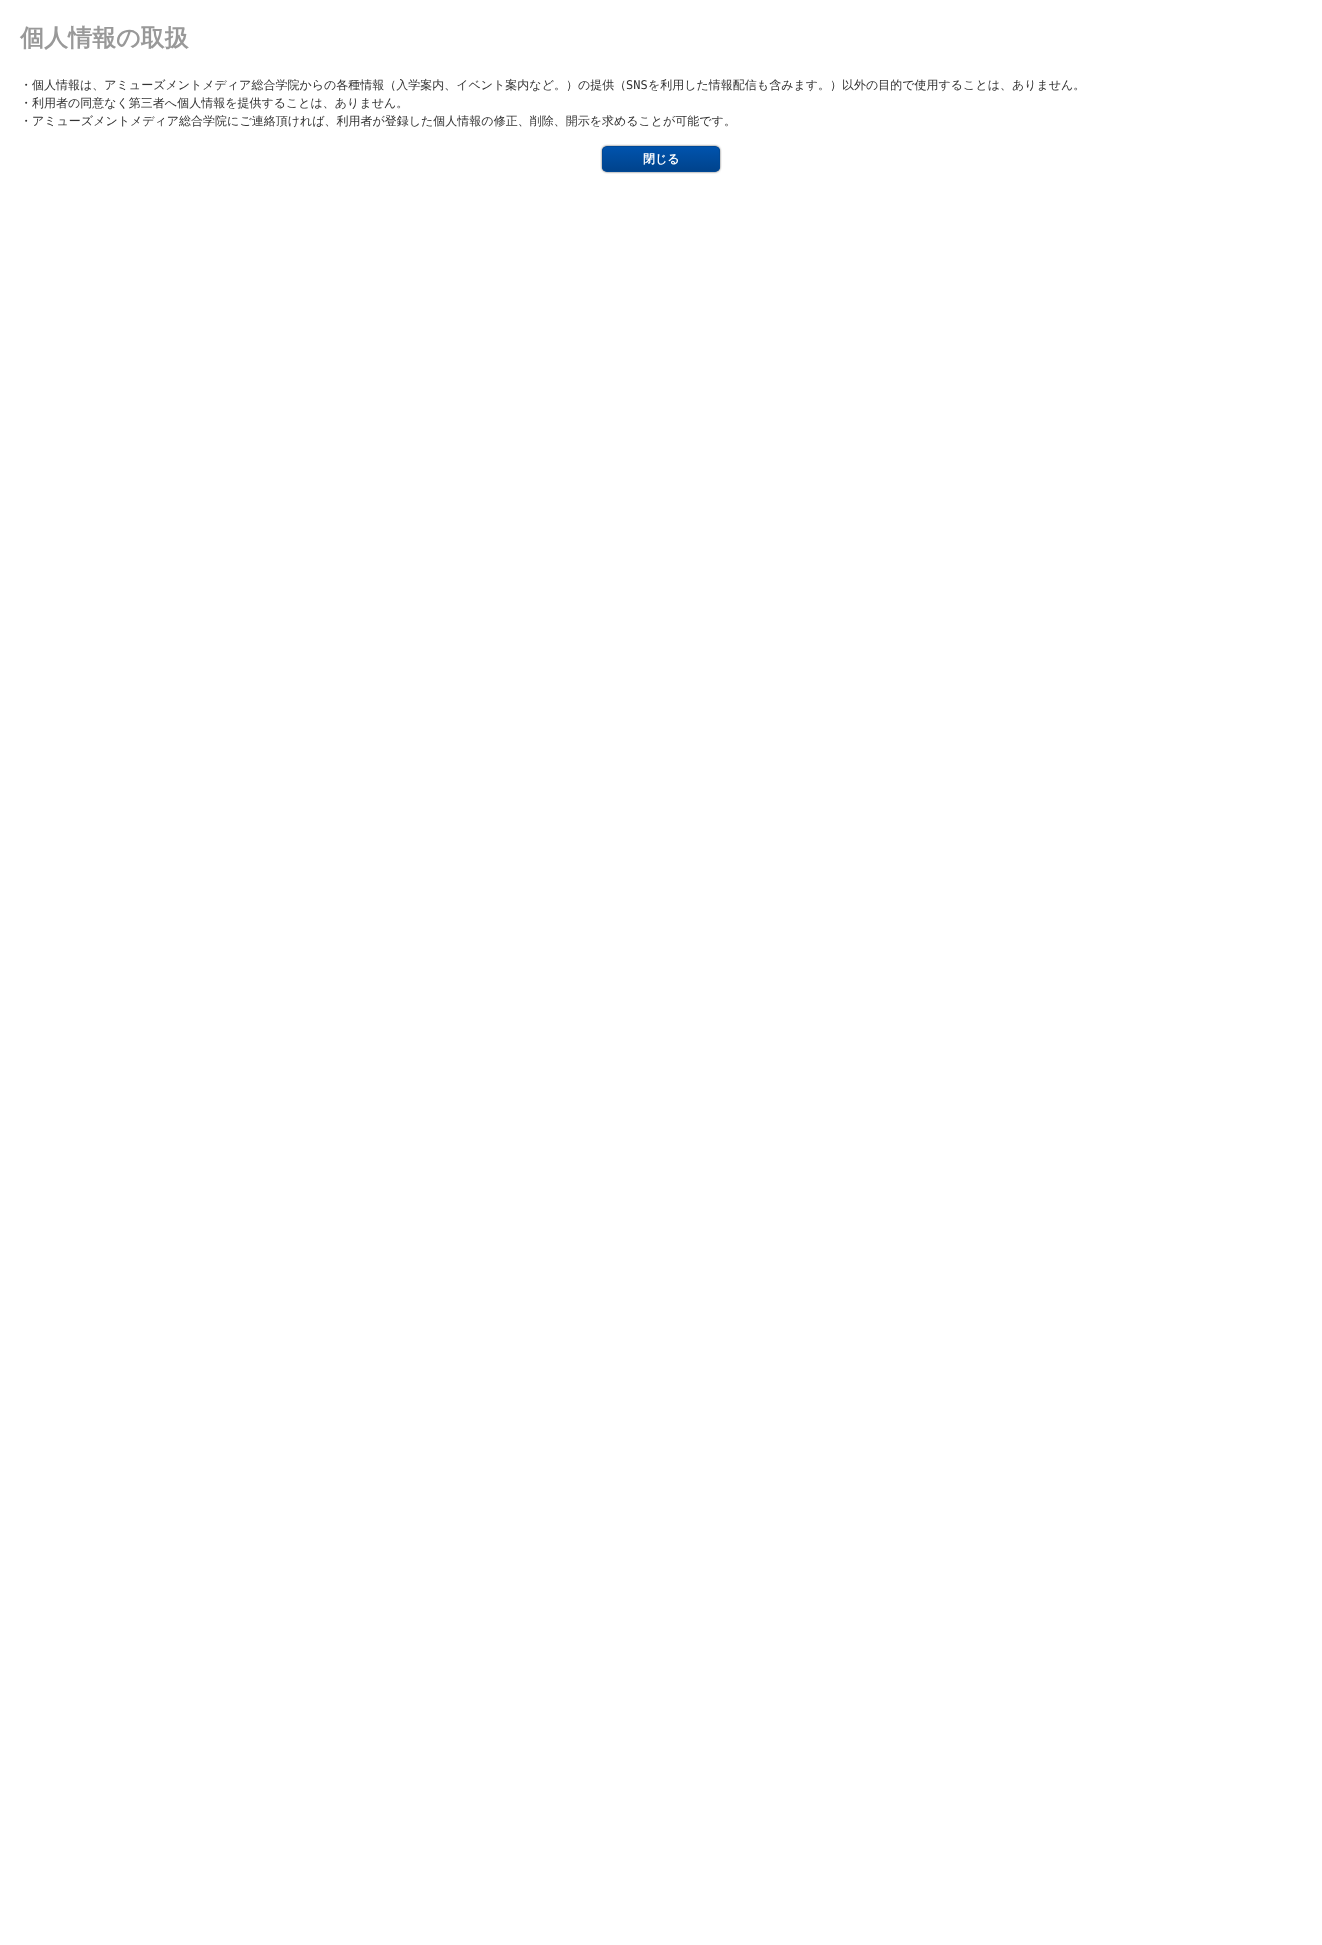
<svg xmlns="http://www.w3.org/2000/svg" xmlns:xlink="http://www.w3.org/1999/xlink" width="1322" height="1945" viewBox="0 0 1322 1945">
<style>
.cls-1{font:bold 24px WenQuanYi Zen Hei;fill:#999999}
.cls-2{font:500 12px WenQuanYi Zen Hei;fill:#333333}
.cls-3{font:12px DejaVu Sans Mono;fill:#333333}
.cls-4{font:bold 12px WenQuanYi Zen Hei;fill:#ffffff}
</style>
<defs>
<clipPath id="clip1"><rect x="602" y="146" width="118" height="26" rx="5"/></clipPath>
<linearGradient id="g1" gradientUnits="userSpaceOnUse" x1="661" y1="147" x2="661" y2="171"><stop offset="0" stop-color="#0053ad"/><stop offset="1" stop-color="#00438c"/></linearGradient>
</defs>
<rect width="100%" height="100%" fill="#ffffff"/>
<rect fill="#666666" filter="blur(1px)" x="602" y="146" width="118" height="26" rx="5"/>
<g clip-path="url(#clip1)">
<rect fill="url(#g1)" x="602" y="147" width="118" height="24"/>
</g>
<rect fill="none" stroke="#004896" x="602.5" y="146.5" width="117" height="25" rx="4.5"/>
<text class="cls-1" x="20" y="46">個人情報の取扱</text>
<text class="cls-2" x="20" y="89">・個人情報は、アミューズメントメディア総合学院からの各種情報（入学案内、イベント案内など。）の提供（</text>
<text class="cls-3" x="626" y="89">SNS</text>
<text class="cls-2" x="648" y="89">を利用した情報配信も含みます。）以外の目的で使用することは、ありません。</text>
<text class="cls-2"><tspan x="20" y="107">・利用者の同意なく第三者へ個人情報を提供することは、ありません。</tspan><tspan x="20" y="125">・アミューズメントメディア総合学院にご連絡頂ければ、利用者が登録した個人情報の修正、削除、開示を求めることが可能です。</tspan></text>
<text class="cls-4" x="643" y="163">閉じる</text>
</svg>
